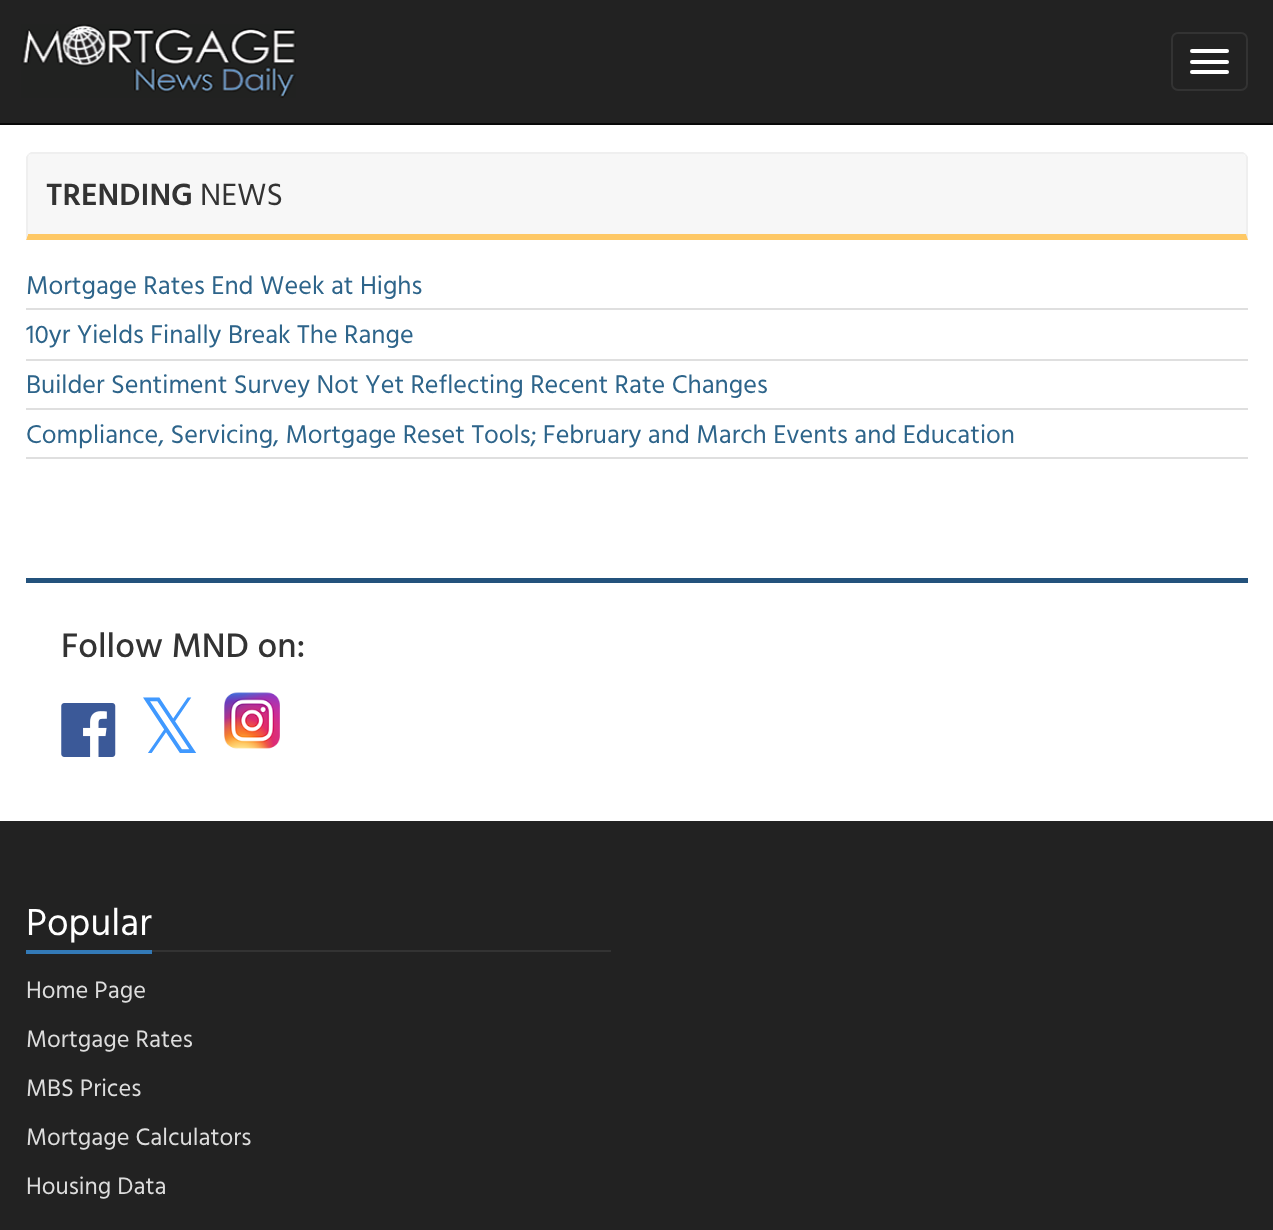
<svg xmlns="http://www.w3.org/2000/svg" xmlns:xlink="http://www.w3.org/1999/xlink" width="1273" height="1230" viewBox="0 0 1273 1230">
<style>*{font-kerning:none!important;font-variant-ligatures:none!important}</style>
<style>
.cls-1{font:600 31.5px Hind Vadodara;fill:#333333}
.cls-2{font:31.5px Hind Vadodara;fill:#333333}
.cls-3{font:26.25px Hind Vadodara;fill:#2d648a}
.cls-4{font:500 35px Hind Vadodara;fill:#333333}
.cls-5{font:76px DejaVu Sans;fill:#4099ff}
.cls-6{font:38.5px Hind Vadodara;fill:#ffffff}
.cls-7{font:24.5px Hind Vadodara;fill:#dddddd}
</style>
<rect width="100%" height="100%" fill="#222222"/>
<rect fill="#080808" x="0" y="123" width="1273" height="2"/>
<image xlink:href="image0.png" x="21" y="24" width="275" height="74"/>
<rect fill="none" stroke="#333333" stroke-width="2" x="1172" y="33" width="75" height="57" rx="6"/>
<rect fill="#ffffff" x="1190" y="49" width="39" height="4" rx="2"/>
<rect fill="#ffffff" x="1190" y="60" width="39" height="4" rx="2"/>
<rect fill="#ffffff" x="1190" y="70" width="39" height="4" rx="2"/>
<rect fill="#ffffff" x="0" y="125" width="1273" height="696"/>
<path fill="#f7f7f7" d="M33 154H1241C1244 154 1246 156 1246 159V235H28V159C28 156 30 154 33 154Z"/>
<path fill="#efefef" d="M33 154C32 154 30 154 29 155L28 154L31 152H1243L1246 154L1245 155C1244 154 1242 154 1241 154Z"/>
<path fill="#efefef" d="M1246 154L1248 157V240L1246 234V158L1245 155Z"/>
<path fill="#fec865" d="M1248 240L1246 234H28L26 240Z"/>
<path fill="#efefef" d="M26 240V157L28 154L29 155L28 158V234Z"/>
<rect fill="#dfdfdf" x="26" y="308" width="1222" height="2"/>
<rect fill="#dfdfdf" x="26" y="359" width="1222" height="2"/>
<rect fill="#dfdfdf" x="26" y="408" width="1222" height="2"/>
<rect fill="#dfdfdf" x="26" y="457" width="1222" height="2"/>
<rect fill="#23527c" x="26" y="578" width="1222" height="5"/>
<image xlink:href="image1.png" x="61" y="703" width="55" height="54"/>
<image xlink:href="image2.png" x="224" y="692" width="56" height="57"/>
<rect fill="#333333" x="152" y="950" width="459" height="2"/>
<rect fill="#337ab7" x="26" y="950" width="126" height="4"/>
<text class="cls-1" x="46" y="205">TRENDING</text>
<text class="cls-2" x="200" y="205">NEWS</text>
<text class="cls-3"><tspan x="26" y="294">Mortgage Rates End Week at Highs</tspan><tspan x="26" y="343">10yr Yields Finally Break The Range</tspan><tspan x="26" y="393">Builder Sentiment Survey Not Yet Reflecting Recent Rate Changes</tspan><tspan x="26" y="443">Compliance, Servicing, Mortgage Reset Tools; February and March Events and Education</tspan></text>
<text class="cls-4" x="61" y="657">Follow MND on:</text>
<text class="cls-5" x="139" y="753">𝕏</text>
<text class="cls-6" x="26" y="935">Popular</text>
<text class="cls-7" x="26" y="998">Home Page</text>
<text class="cls-7" x="26" y="1047">Mortgage Rates</text>
<text class="cls-7" x="26" y="1096">MBS Prices</text>
<text class="cls-7" x="26" y="1145">Mortgage Calculators</text>
<text class="cls-7" x="26" y="1194">Housing Data</text>
</svg>
